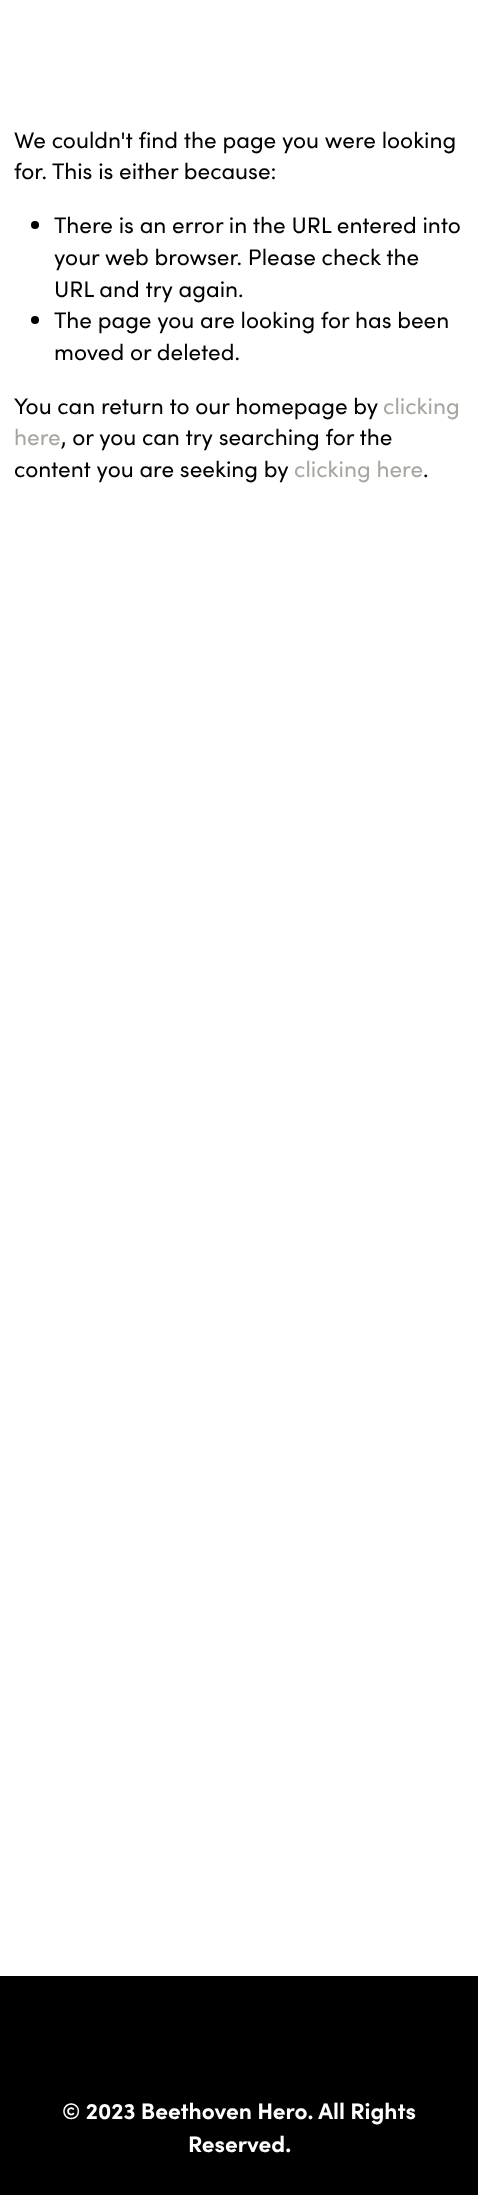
<svg xmlns="http://www.w3.org/2000/svg" xmlns:xlink="http://www.w3.org/1999/xlink" width="478" height="2195" viewBox="0 0 478 2195">
<style>
.cls-1{font:22.6px Sofia;fill:#000000}
.cls-2{font:22.6px Sofia;fill:#a8a6a1}
.cls-3{font:bold 22.6px Sofia;fill:#ffffff}
</style>
<rect width="100%" height="100%" fill="#ffffff"/>
<circle fill="#000000" cx="35" cy="225" r="4"/>
<circle fill="#000000" cx="35" cy="320" r="4"/>
<rect fill="#000000" x="0" y="1976" width="478" height="219"/>
<text class="cls-1"><tspan x="14" y="148">We couldn't find the page you were looking</tspan><tspan x="14" y="179">for. This is either because:</tspan></text>
<text class="cls-1"><tspan x="54" y="233">There is an error in the URL entered into</tspan><tspan x="54" y="265">your web browser. Please check the</tspan><tspan x="54" y="297">URL and try again.</tspan><tspan x="54" y="328">The page you are looking for has been</tspan><tspan x="54" y="360">moved or deleted.</tspan></text>
<text class="cls-1" x="14" y="414">You can return to our homepage by</text>
<text class="cls-2" x="383" y="414">clicking</text>
<text class="cls-2" x="14" y="445">here</text>
<text class="cls-1" x="61" y="445">, or you can try searching for the</text>
<text class="cls-1" x="14" y="477">content you are seeking by</text>
<text class="cls-2" x="294" y="477">clicking here</text>
<text class="cls-1" x="423" y="477">.</text>
<text class="cls-3" x="62" y="2119">© 2023 Beethoven Hero. All Rights</text>
<text class="cls-3" x="188" y="2152">Reserved.</text>
</svg>
